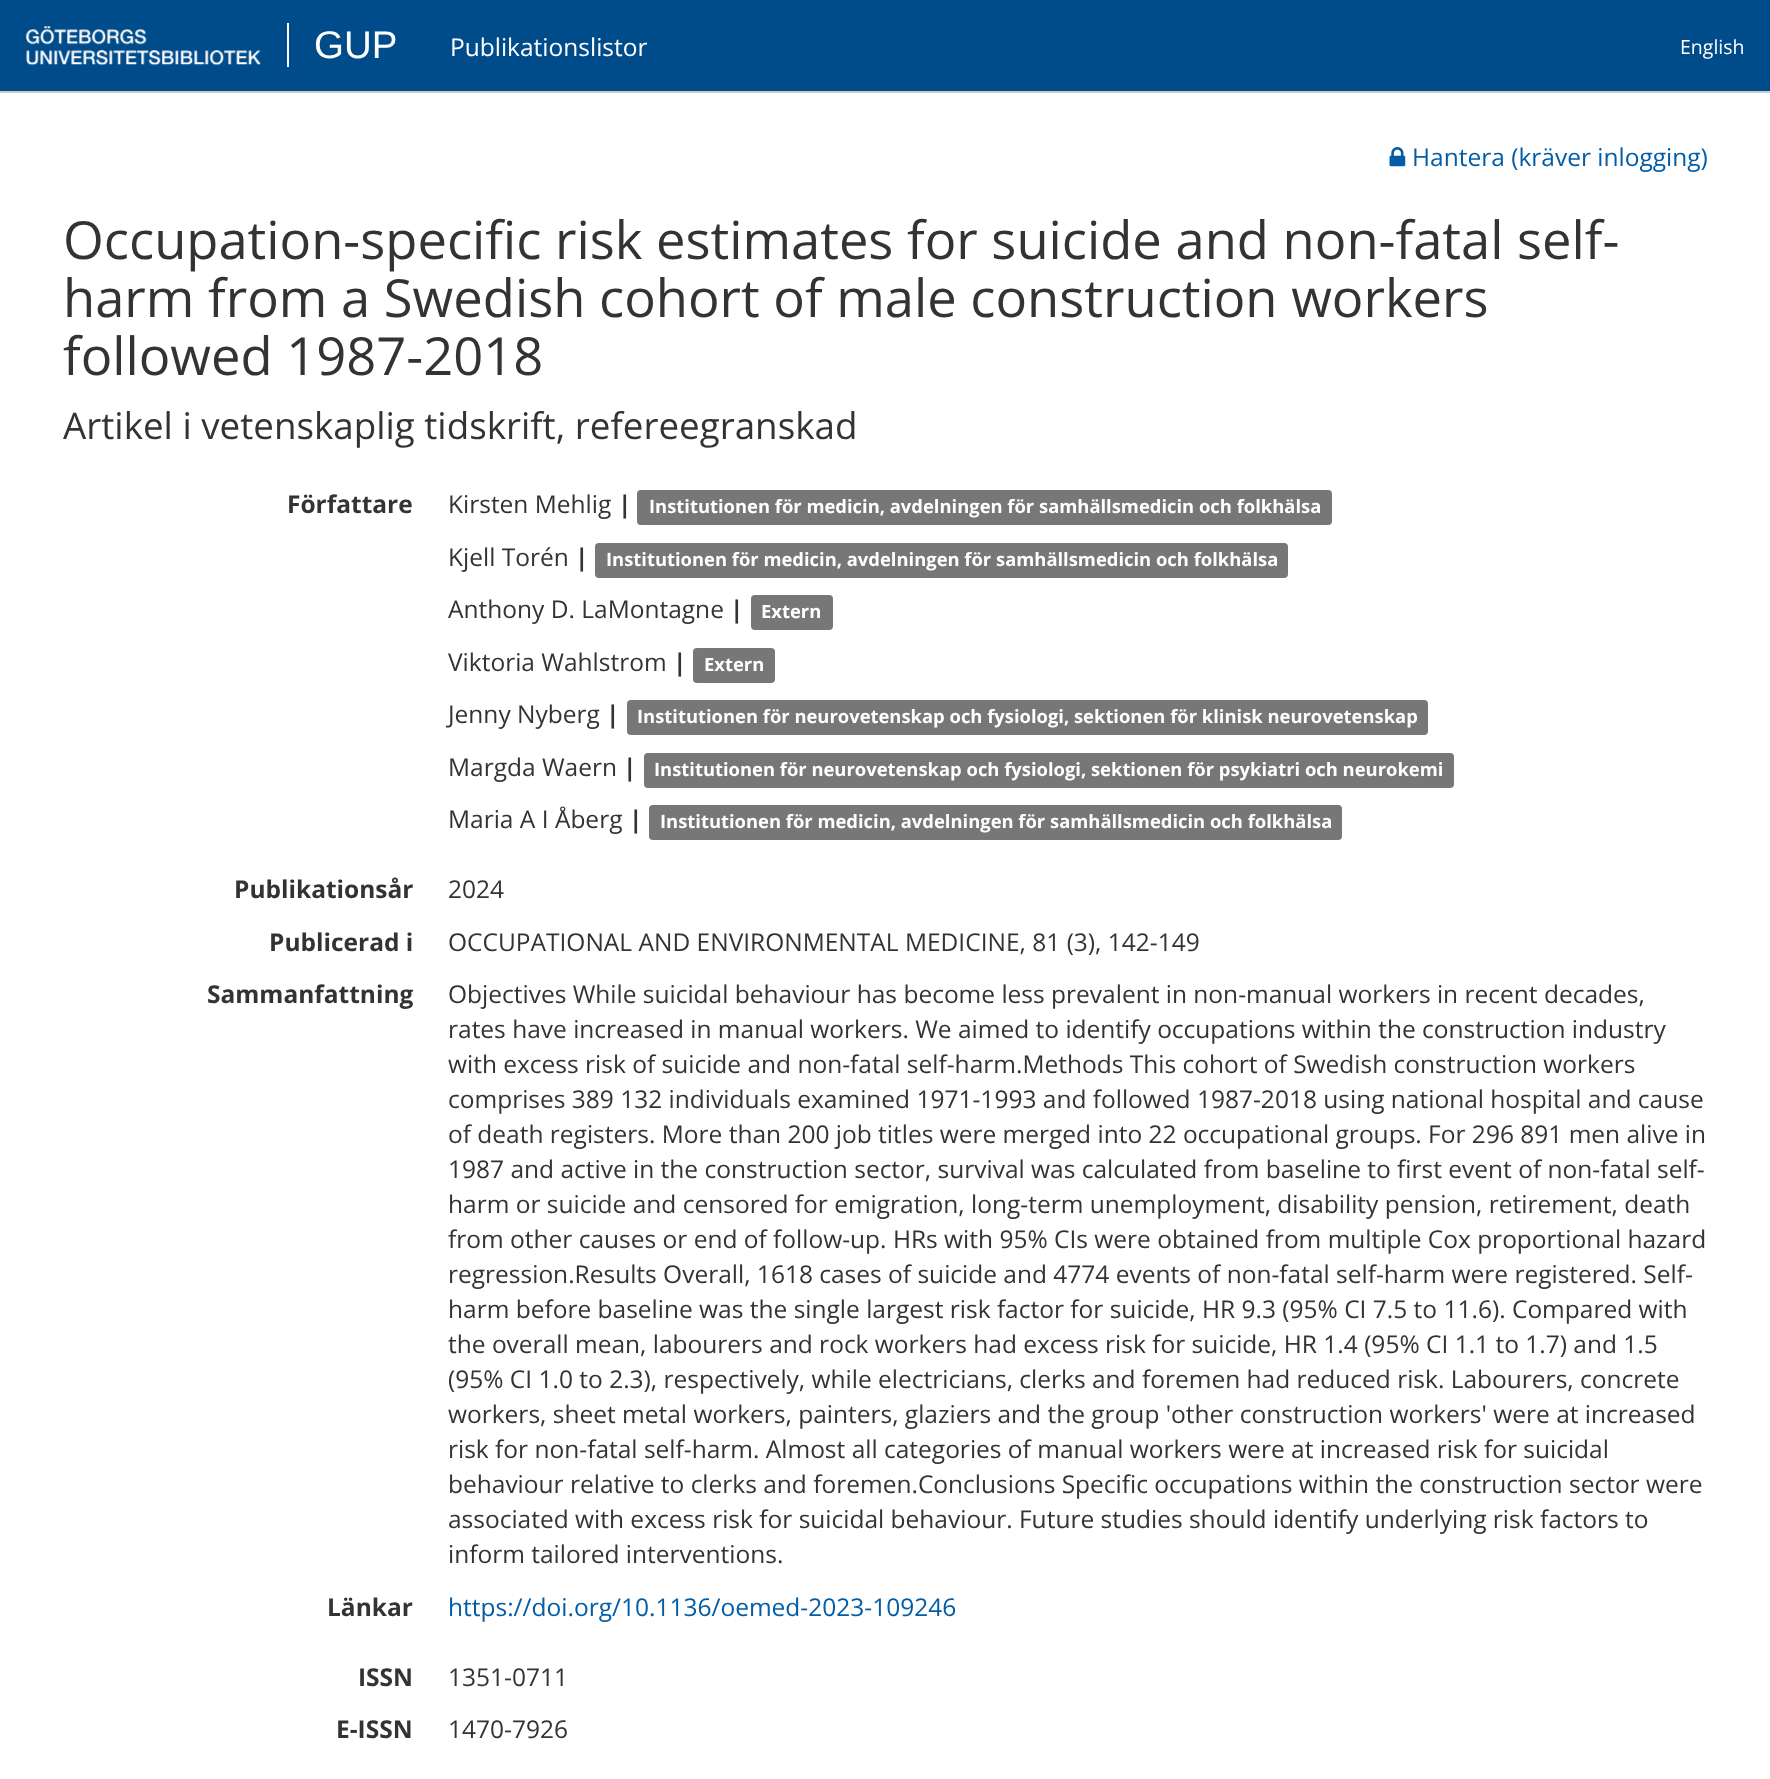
<svg xmlns="http://www.w3.org/2000/svg" xmlns:xlink="http://www.w3.org/1999/xlink" width="1770" height="1779" viewBox="0 0 1770 1779">
<style>
.cls-1{font:38.5px Liberation Sans;fill:#ffffff}
.cls-2{font:24.5px Open Sans;fill:#ffffff}
.cls-3{font:19.5px Open Sans;fill:#ffffff}
.cls-4{font:24.5px Open Sans;fill:#025da6}
.cls-5{font:52.5px Open Sans;fill:#333333}
.cls-6{font:36.75px Open Sans;fill:#333333}
.cls-7{font:bold 24.5px Open Sans;fill:#333333}
.cls-8{font:24.5px Open Sans;fill:#333333}
.cls-9{font:bold 18.4px Open Sans;fill:#ffffff}
</style>
<rect width="100%" height="100%" fill="#ffffff"/>
<rect fill="#004b89" x="0" y="0" width="1770" height="91"/>
<rect fill="#cccccc" x="0" y="91" width="1770" height="2"/>
<image xlink:href="image0.png" x="26" y="26" width="235" height="40"/>
<rect fill="#ffffff" x="287" y="23" width="2" height="44"/>
<image xlink:href="image1.png" x="1389" y="147" width="17" height="20"/>
<rect fill="#777777" x="637" y="490" width="695" height="35" rx="4"/>
<rect fill="#777777" x="595" y="543" width="693" height="35" rx="4"/>
<rect fill="#777777" x="751" y="595" width="82" height="35" rx="4"/>
<rect fill="#777777" x="693" y="648" width="82" height="35" rx="4"/>
<rect fill="#777777" x="627" y="700" width="801" height="35" rx="4"/>
<rect fill="#777777" x="644" y="753" width="810" height="35" rx="4"/>
<rect fill="#777777" x="649" y="805" width="693" height="35" rx="4"/>
<text class="cls-1" x="314" y="58">GUP</text>
<text class="cls-2" x="450" y="56">Publikationslistor</text>
<text class="cls-3" x="1680" y="54">English</text>
<text class="cls-4" x="1412" y="166">Hantera (kräver inlogging)</text>
<text class="cls-5"><tspan x="63" y="259">Occupation-specific risk estimates for suicide and non-fatal self-</tspan><tspan x="63" y="317">harm from a Swedish cohort of male construction workers</tspan><tspan x="63" y="375">followed 1987-2018</tspan></text>
<text class="cls-6" x="63" y="439">Artikel i vetenskaplig tidskrift, refereegranskad</text>
<text class="cls-7" x="287" y="513">Författare</text>
<text class="cls-8" x="448" y="513">Kirsten Mehlig</text>
<text class="cls-7" x="618" y="513">|</text>
<text class="cls-9" x="649" y="513">Institutionen för medicin, avdelningen för samhällsmedicin och folkhälsa</text>
<text class="cls-8" x="448" y="566">Kjell Torén</text>
<text class="cls-7" x="575" y="566">|</text>
<text class="cls-9" x="606" y="566">Institutionen för medicin, avdelningen för samhällsmedicin och folkhälsa</text>
<text class="cls-8" x="448" y="618">Anthony D. LaMontagne</text>
<text class="cls-7" x="730" y="618">|</text>
<text class="cls-9" x="761" y="618">Extern</text>
<text class="cls-8" x="448" y="671">Viktoria Wahlstrom</text>
<text class="cls-7" x="673" y="671">|</text>
<text class="cls-9" x="704" y="671">Extern</text>
<text class="cls-8" x="448" y="723">Jenny Nyberg</text>
<text class="cls-7" x="606" y="723">|</text>
<text class="cls-9" x="637" y="723">Institutionen för neurovetenskap och fysiologi, sektionen för klinisk neurovetenskap</text>
<text class="cls-8" x="448" y="776">Margda Waern</text>
<text class="cls-7" x="623" y="776">|</text>
<text class="cls-9" x="654" y="776">Institutionen för neurovetenskap och fysiologi, sektionen för psykiatri och neurokemi</text>
<text class="cls-8" x="448" y="828">Maria A I Åberg</text>
<text class="cls-7" x="629" y="828">|</text>
<text class="cls-9" x="660" y="828">Institutionen för medicin, avdelningen för samhällsmedicin och folkhälsa</text>
<text class="cls-7" x="234" y="898">Publikationsår</text>
<text class="cls-8" x="448" y="898">2024</text>
<text class="cls-7" x="269" y="951">Publicerad i</text>
<text class="cls-8" x="448" y="951">OCCUPATIONAL AND ENVIRONMENTAL MEDICINE, 81 (3), 142-149</text>
<text class="cls-7" x="207" y="1003">Sammanfattning</text>
<text class="cls-8"><tspan x="448" y="1003">Objectives While suicidal behaviour has become less prevalent in non-manual workers in recent decades,</tspan><tspan x="448" y="1038">rates have increased in manual workers. We aimed to identify occupations within the construction industry</tspan><tspan x="448" y="1073">with excess risk of suicide and non-fatal self-harm.Methods This cohort of Swedish construction workers</tspan><tspan x="448" y="1108">comprises 389 132 individuals examined 1971-1993 and followed 1987-2018 using national hospital and cause</tspan><tspan x="448" y="1143">of death registers. More than 200 job titles were merged into 22 occupational groups. For 296 891 men alive in</tspan><tspan x="448" y="1178">1987 and active in the construction sector, survival was calculated from baseline to first event of non-fatal self-</tspan><tspan x="448" y="1213">harm or suicide and censored for emigration, long-term unemployment, disability pension, retirement, death</tspan><tspan x="448" y="1248">from other causes or end of follow-up. HRs with 95% CIs were obtained from multiple Cox proportional hazard</tspan><tspan x="448" y="1283">regression.Results Overall, 1618 cases of suicide and 4774 events of non-fatal self-harm were registered. Self-</tspan><tspan x="448" y="1318">harm before baseline was the single largest risk factor for suicide, HR 9.3 (95% CI 7.5 to 11.6). Compared with</tspan><tspan x="448" y="1353">the overall mean, labourers and rock workers had excess risk for suicide, HR 1.4 (95% CI 1.1 to 1.7) and 1.5</tspan><tspan x="448" y="1388">(95% CI 1.0 to 2.3), respectively, while electricians, clerks and foremen had reduced risk. Labourers, concrete</tspan><tspan x="448" y="1423">workers, sheet metal workers, painters, glaziers and the group 'other construction workers' were at increased</tspan><tspan x="448" y="1458">risk for non-fatal self-harm. Almost all categories of manual workers were at increased risk for suicidal</tspan><tspan x="448" y="1493">behaviour relative to clerks and foremen.Conclusions Specific occupations within the construction sector were</tspan><tspan x="448" y="1528">associated with excess risk for suicidal behaviour. Future studies should identify underlying risk factors to</tspan><tspan x="448" y="1563">inform tailored interventions.</tspan></text>
<text class="cls-7" x="327" y="1616">Länkar</text>
<text class="cls-4" x="448" y="1616">https://doi.org/10.1136/oemed-2023-109246</text>
<text class="cls-7" x="358" y="1686">ISSN</text>
<text class="cls-8" x="448" y="1686">1351-0711</text>
<text class="cls-7" x="336" y="1738">E-ISSN</text>
<text class="cls-8" x="448" y="1738">1470-7926</text>
</svg>
